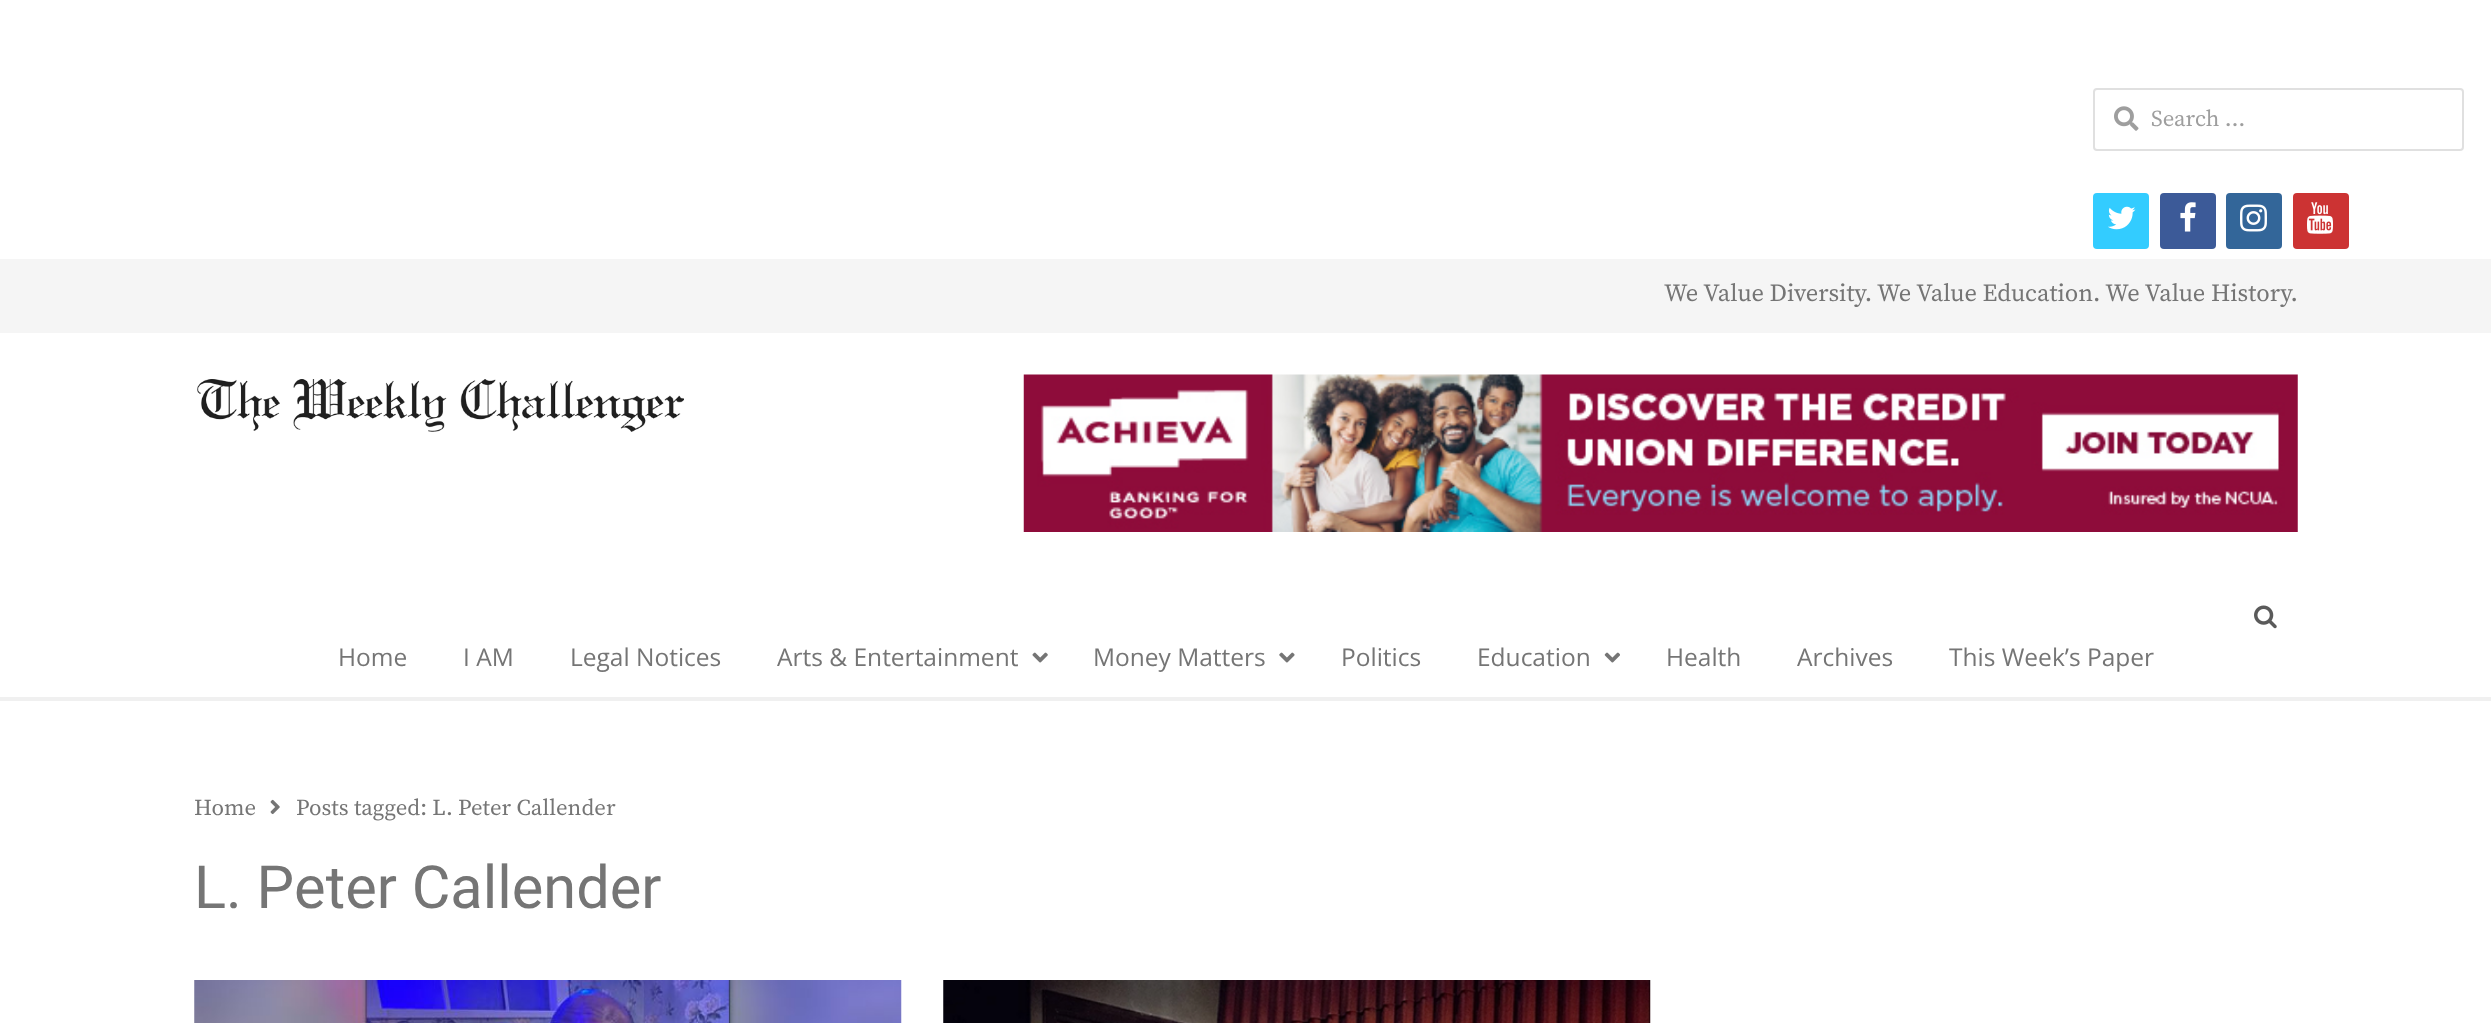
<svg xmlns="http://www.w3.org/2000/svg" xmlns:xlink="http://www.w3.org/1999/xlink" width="2491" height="1023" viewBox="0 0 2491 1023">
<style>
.cls-1{font:22.75px Source Serif Pro;fill:#9e9e9e}
.cls-2{font:24.5px Source Serif Pro;fill:#757575}
.cls-3{font:24.5px Open Sans;fill:#757575}
.cls-4{font:22.75px Source Serif Pro;fill:#757575}
.cls-5{font:59.5px Heebo;fill:#757575}
</style>
<rect width="100%" height="100%" fill="#ffffff"/>
<rect fill="none" stroke="#e0e0e0" stroke-width="2" x="2094" y="89" width="369" height="61" rx="3"/>
<image xlink:href="image0.png" x="2114" y="106" width="25" height="25"/>
<rect fill="#33ccff" x="2093" y="193" width="56" height="56" rx="4"/>
<image xlink:href="image1.png" x="2108" y="206" width="28" height="24"/>
<rect fill="#3c5a98" x="2160" y="193" width="56" height="56" rx="4"/>
<image xlink:href="image2.png" x="2180" y="202" width="16" height="30"/>
<rect fill="#336699" x="2226" y="193" width="56" height="56" rx="4"/>
<image xlink:href="image3.png" x="2240" y="204" width="27" height="28"/>
<rect fill="#cc3333" x="2293" y="193" width="56" height="56" rx="4"/>
<image xlink:href="image4.png" x="2307" y="202" width="26" height="32"/>
<rect fill="#f5f5f5" x="0" y="259" width="2491" height="74"/>
<image xlink:href="image5.png" x="197" y="379" width="487" height="53"/>
<image xlink:href="image6.png" x="1023" y="374" width="1275" height="158"/>
<rect fill="#f0f0f0" x="0" y="697" width="2491" height="4"/>
<image xlink:href="image7.png" x="2254" y="605" width="23" height="24"/>
<image xlink:href="image8.png" x="1032" y="652" width="16" height="11"/>
<image xlink:href="image9.png" x="1279" y="652" width="16" height="11"/>
<image xlink:href="image10.png" x="1604" y="652" width="16" height="11"/>
<image xlink:href="image11.png" x="270" y="799" width="10" height="16"/>
<image xlink:href="image12.png" x="194" y="980" width="708" height="43"/>
<image xlink:href="image13.png" x="943" y="980" width="708" height="43"/>
<text class="cls-1" x="2151" y="126">Search …</text>
<text class="cls-2" x="1664" y="301">We Value Diversity. We Value Education. We Value History.</text>
<text class="cls-3" x="338" y="666">Home</text>
<text class="cls-3" x="463" y="666">I AM</text>
<text class="cls-3" x="570" y="666">Legal Notices</text>
<text class="cls-3" x="777" y="666">Arts &amp; Entertainment</text>
<text class="cls-3" x="1093" y="666">Money Matters</text>
<text class="cls-3" x="1341" y="666">Politics</text>
<text class="cls-3" x="1477" y="666">Education</text>
<text class="cls-3" x="1666" y="666">Health</text>
<text class="cls-3" x="1797" y="666">Archives</text>
<text class="cls-3" x="1949" y="666">This Week’s Paper</text>
<text class="cls-4" x="194" y="815">Home</text>
<text class="cls-4" x="296" y="815">Posts tagged: L. Peter Callender</text>
<text class="cls-5" x="194" y="908">L. Peter Callender</text>
</svg>
